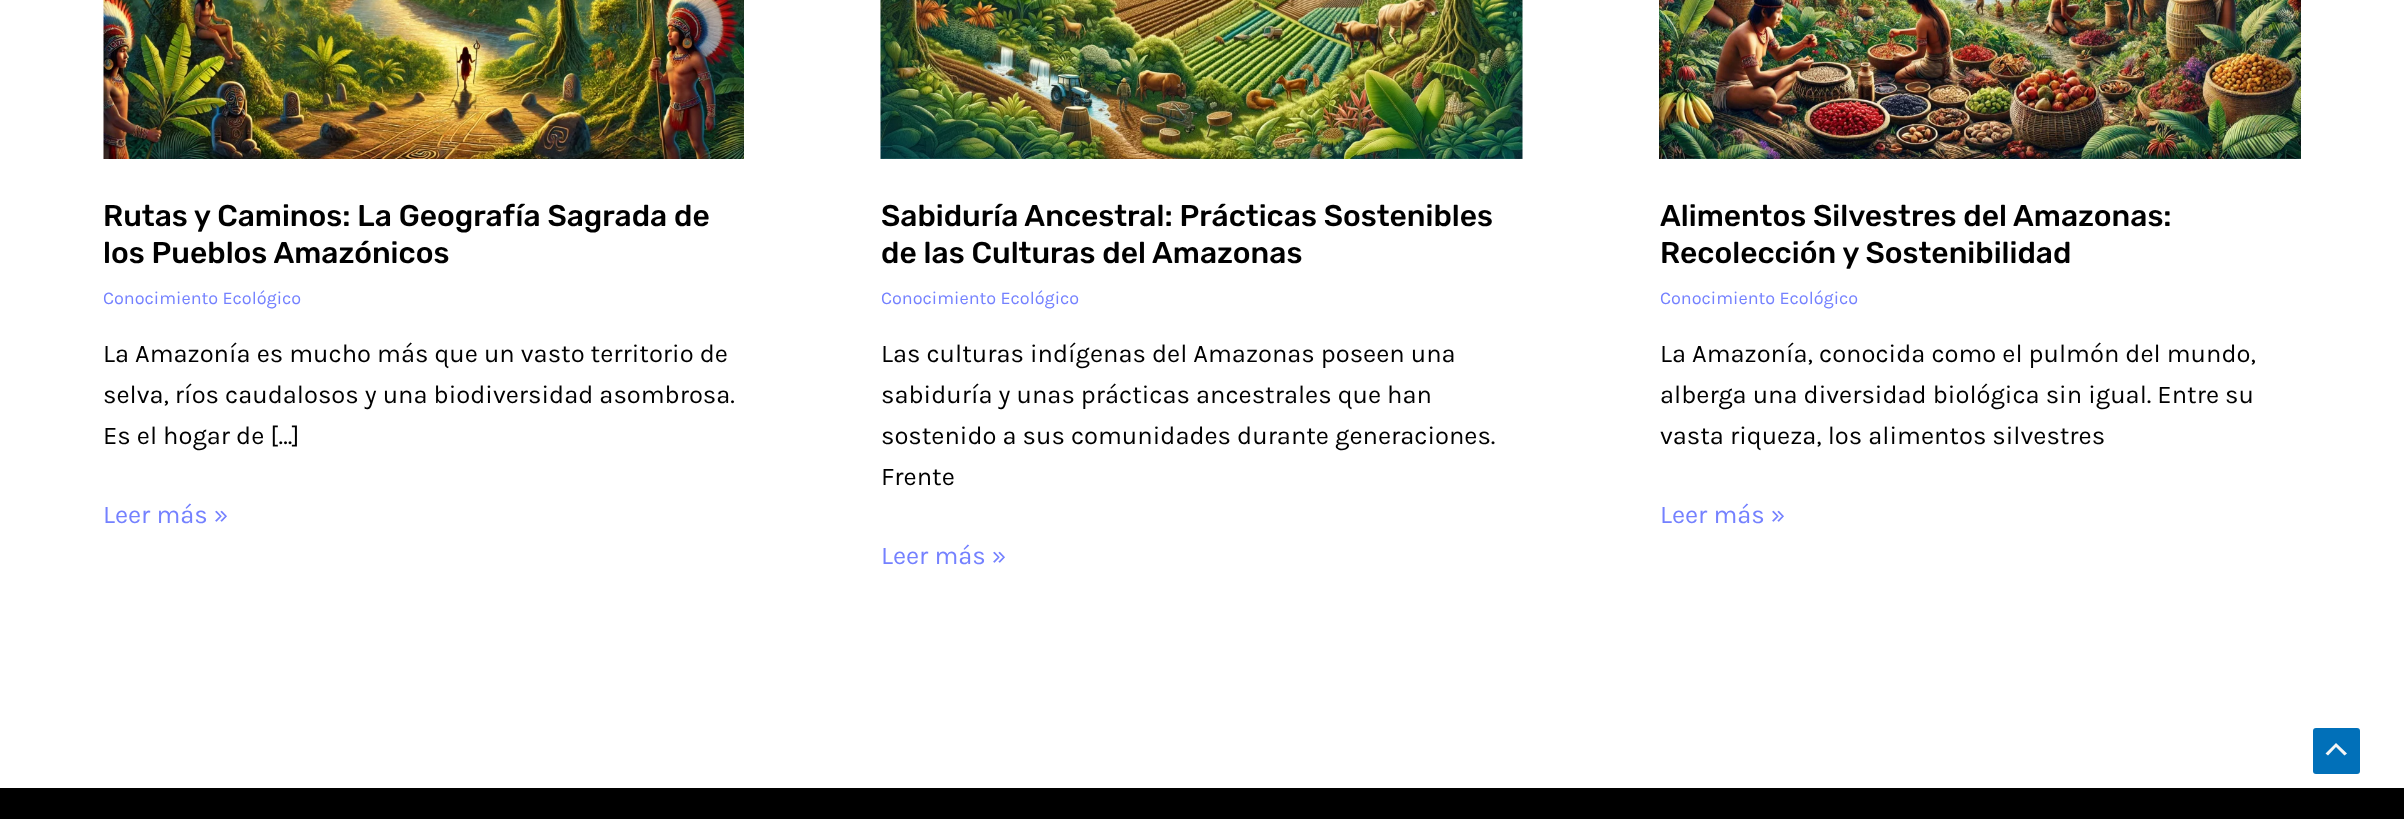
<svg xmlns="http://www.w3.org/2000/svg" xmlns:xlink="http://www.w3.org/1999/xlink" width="2404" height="819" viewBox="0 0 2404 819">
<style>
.cls-1{font:500 30px Rubik;fill:#000000}
.cls-2{font:18px Karla;fill:#7481ff}
.cls-3{font:25.5px Karla;fill:#000000}
.cls-4{font:25.5px Karla;fill:#7481ff}
</style>
<rect width="100%" height="100%" fill="#ffffff"/>
<image xlink:href="image0.png" x="103" y="0" width="641" height="159"/>
<image xlink:href="image1.png" x="880" y="0" width="643" height="159"/>
<image xlink:href="image2.png" x="1659" y="0" width="642" height="159"/>
<rect fill="#000000" x="0" y="788" width="2404" height="31"/>
<rect fill="#0170b9" x="2313" y="728" width="47" height="46" rx="3"/>
<path fill="#f5f5f5" d="M2347 753.5L2336 743L2325.5 753.5L2328 755.5L2336 747L2344.5 755.5Z"/>
<text class="cls-1"><tspan x="103" y="226">Rutas y Caminos: La Geografía Sagrada de</tspan><tspan x="103" y="263">los Pueblos Amazónicos</tspan></text>
<text class="cls-2" x="103" y="304">Conocimiento Ecológico</text>
<text class="cls-3"><tspan x="103" y="362">La Amazonía es mucho más que un vasto territorio de</tspan><tspan x="103" y="403">selva, ríos caudalosos y una biodiversidad asombrosa.</tspan><tspan x="103" y="444">Es el hogar de […]</tspan></text>
<text class="cls-4" x="103" y="523">Leer más »</text>
<text class="cls-1"><tspan x="881" y="226">Sabiduría Ancestral: Prácticas Sostenibles</tspan><tspan x="881" y="263">de las Culturas del Amazonas</tspan></text>
<text class="cls-2" x="881" y="304">Conocimiento Ecológico</text>
<text class="cls-3"><tspan x="881" y="362">Las culturas indígenas del Amazonas poseen una</tspan><tspan x="881" y="403">sabiduría y unas prácticas ancestrales que han</tspan><tspan x="881" y="444">sostenido a sus comunidades durante generaciones.</tspan><tspan x="881" y="485">Frente</tspan></text>
<text class="cls-4" x="881" y="564">Leer más »</text>
<text class="cls-1"><tspan x="1660" y="226">Alimentos Silvestres del Amazonas:</tspan><tspan x="1660" y="263">Recolección y Sostenibilidad</tspan></text>
<text class="cls-2" x="1660" y="304">Conocimiento Ecológico</text>
<text class="cls-3"><tspan x="1660" y="362">La Amazonía, conocida como el pulmón del mundo,</tspan><tspan x="1660" y="403">alberga una diversidad biológica sin igual. Entre su</tspan><tspan x="1660" y="444">vasta riqueza, los alimentos silvestres</tspan></text>
<text class="cls-4" x="1660" y="523">Leer más »</text>
</svg>
